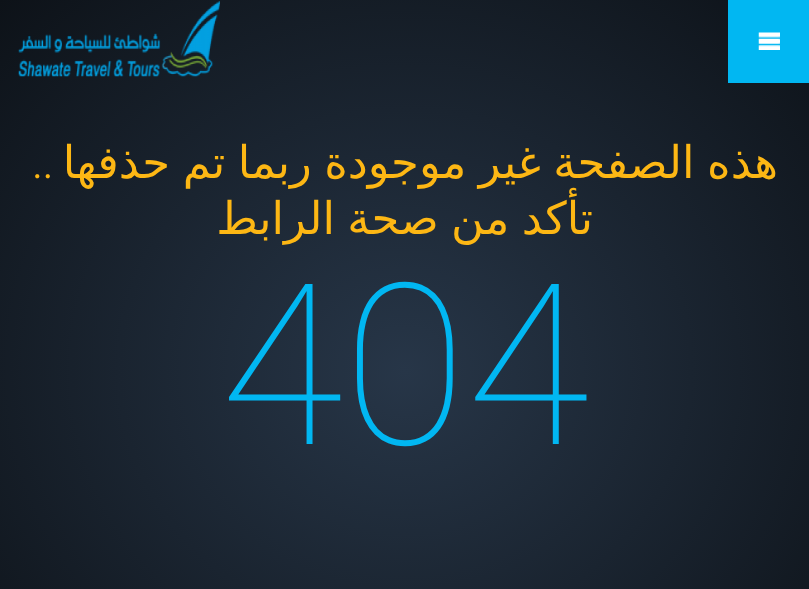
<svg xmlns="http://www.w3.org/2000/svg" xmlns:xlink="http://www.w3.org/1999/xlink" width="809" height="589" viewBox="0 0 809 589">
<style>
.cls-1{font:45px DejaVu Sans;direction:rtl;fill:#fdb714}
.cls-2{font:300 45px Lato;direction:rtl;fill:#fdb714}
.cls-3{font:100 225px Roboto;fill:#01b7f2}
</style>
<defs>
<radialGradient id="g1" gradientUnits="userSpaceOnUse" cx="0" cy="0" r="1" gradientTransform="matrix(573 0 0 524 405 371)"><stop offset="0" stop-color="#273648"/><stop offset="1" stop-color="#0d1218"/></radialGradient>
</defs>
<rect width="100%" height="100%" fill="#ffffff"/>
<rect fill="url(#g1)" x="0" y="0" width="809" height="589"/>
<rect fill="#01b7f2" x="728" y="0" width="81" height="83"/>
<image xlink:href="image0.png" x="758" y="32" width="22" height="18"/>
<image xlink:href="image1.png" x="18" y="1" width="202" height="76"/>
<text class="cls-1" x="778" y="178" word-spacing="-1.75">هذه الصفحة غير موجودة ربما تم حذفها</text>
<text class="cls-2" x="53" y="178">..</text>
<text class="cls-1" x="593" y="234" word-spacing="-2">تأكد من صحة الرابط</text>
<text class="cls-3" x="220" y="444">404</text>
</svg>
